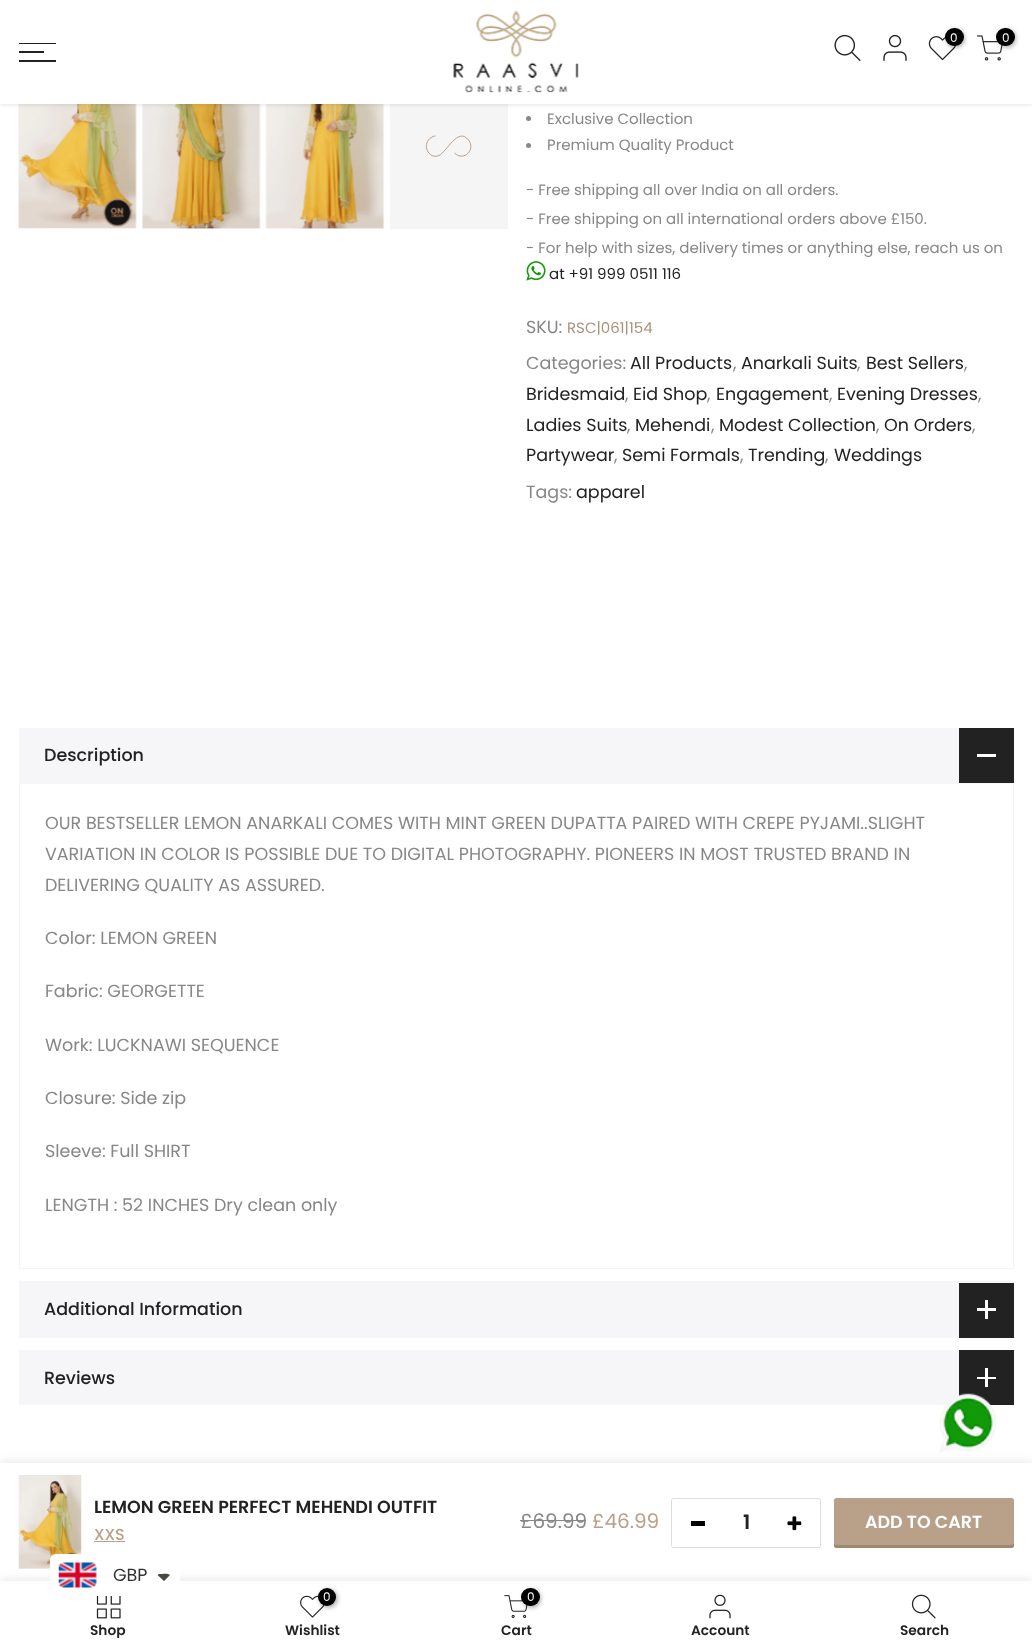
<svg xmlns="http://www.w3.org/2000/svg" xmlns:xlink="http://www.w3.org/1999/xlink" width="1032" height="1649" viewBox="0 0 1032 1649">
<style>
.cls-1{font:12px Poppins;fill:#ffffff}
.cls-2{font:15px Poppins;fill:#878787}
.cls-3{font:15px Poppins;fill:#222222}
.cls-4{font:17.5px Poppins;fill:#878787}
.cls-5{font:15px Poppins;fill:#aa917a}
.cls-6{font:17.5px Poppins;fill:#222222}
.cls-7{font:500 17.5px Poppins;fill:#222222}
.cls-8{font:600 17.5px Poppins;fill:#222222}
.cls-9{font:500 16px Poppins;fill:#b9a088}
.cls-10{font:20px Poppins;fill:#878787}
.cls-11{font:20px Poppins;fill:#b9a088}
.cls-12{font:600 20px Poppins;fill:#222222}
.cls-13{font:600 17.5px Poppins;fill:#ffffff}
.cls-14{font:17.5px Poppins;fill:#333333}
.cls-15{font:600 13.75px Poppins;fill:#222222}
</style>
<defs>
<clipPath id="clip1"><rect x="19" y="1624" width="179" height="14"/></clipPath>
</defs>
<rect width="100%" height="100%" fill="#ffffff"/>
<image xlink:href="image5.png" x="18" y="104" width="119" height="125"/>
<image xlink:href="image6.png" x="142" y="104" width="119" height="125"/>
<image xlink:href="image7.png" x="265" y="104" width="120" height="125"/>
<rect fill="#f5f5f5" x="390" y="104" width="118" height="125"/>
<rect fill="#000000" fill-opacity="0.1" filter="blur(2px)" x="0" y="1" width="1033" height="104"/>
<rect fill="#ffffff" x="0" y="0" width="1032" height="104"/>
<image xlink:href="image0.png" x="453" y="10" width="126" height="83"/>
<image xlink:href="image1.png" x="834" y="34" width="27" height="27"/>
<image xlink:href="image2.png" x="883" y="34" width="24" height="27"/>
<image xlink:href="image3.png" x="928" y="36" width="28" height="25"/>
<rect fill="#000000" fill-opacity="0.3" filter="blur(2px)" x="946" y="29" width="19" height="19" rx="9.5"/>
<rect fill="#000000" x="945" y="28" width="19" height="18" rx="9"/>
<image xlink:href="image4.png" x="976" y="35" width="27" height="26"/>
<rect fill="#000000" fill-opacity="0.3" filter="blur(2px)" x="998" y="29" width="18" height="19" rx="9"/>
<rect fill="#000000" x="996" y="28" width="19" height="18" rx="9"/>
<rect fill="#222222" x="19" y="43" width="37" height="1"/>
<rect fill="#222222" x="19" y="51" width="25" height="2"/>
<rect fill="#222222" x="19" y="60" width="37" height="2"/>
<path fill="none" stroke="#b9a088" d="M435.5 136C433 136 430.5 137.5 428.5 140C422.5 147.5 430 159.5 439 155.5C447 151.5 458 126.5 468.5 140C476 149.5 464 162 454.5 153"/>
<circle fill="#878787" cx="528.5" cy="118.5" r="2.5"/>
<circle fill="#878787" cx="528.5" cy="145.5" r="2.5"/>
<image xlink:href="image8.png" x="526" y="261" width="20" height="20"/>
<rect fill="#f6f6f8" x="19" y="728" width="995" height="56"/>
<rect fill="#222222" x="959" y="728" width="55" height="55"/>
<rect fill="#ffffff" x="977" y="754" width="19" height="3"/>
<rect fill="#f5f5f5" x="1013" y="784" width="1" height="485"/>
<rect fill="#f5f5f5" x="19" y="1268" width="995" height="1"/>
<rect fill="#f5f5f5" x="19" y="784" width="1" height="485"/>
<rect fill="#f6f6f8" x="19" y="1281" width="995" height="57"/>
<rect fill="#222222" x="959" y="1283" width="55" height="55"/>
<rect fill="#ffffff" x="985" y="1300" width="3" height="19"/>
<rect fill="#ffffff" x="977" y="1308" width="19" height="3"/>
<rect fill="#f6f6f8" x="19" y="1350" width="940" height="55"/>
<rect fill="#222222" x="959" y="1350" width="55" height="55"/>
<rect fill="#ffffff" x="985" y="1368" width="3" height="19"/>
<rect fill="#ffffff" x="977" y="1377" width="19" height="2"/>
<image xlink:href="image9.png" x="939" y="1393" width="58" height="60"/>
<rect fill="#000000" fill-opacity="0.12" filter="blur(5.5px)" x="0" y="1463" width="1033" height="118"/>
<rect fill="#ffffff" x="0" y="1463" width="1032" height="118"/>
<image xlink:href="image10.png" x="18" y="1475" width="64" height="94"/>
<rect fill="#b9a088" x="94" y="1541" width="31" height="1"/>
<rect fill="#878787" x="520" y="1520" width="66" height="1"/>
<rect fill="none" stroke="#dddddd" x="671.5" y="1498.5" width="149" height="49" rx="2"/>
<rect fill="#000000" x="691" y="1521" width="14" height="5"/>
<image xlink:href="image11.png" x="787" y="1516" width="15" height="15"/>
<rect fill="#b9a088" x="834" y="1498" width="180" height="50" rx="2.5"/>
<path fill="#000000" fill-opacity="0.15" d="M834 1542V1546C834 1547 835 1548 836 1548H1012C1013 1548 1014 1547 1014 1546V1542C1014 1544 1013 1545 1011 1545H836C835 1545 834 1544 834 1542Z"/>
<rect fill="#000000" fill-opacity="0.12" filter="blur(5.5px)" x="0" y="1581" width="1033" height="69"/>
<rect fill="#ffffff" x="0" y="1581" width="1032" height="68"/>
<rect fill="#ffffff" x="50" y="1554" width="130" height="42" rx="6"/>
<image xlink:href="image12.png" x="58" y="1562" width="39" height="26"/>
<path fill="#474942" d="M160 1574C162.5 1574 168 1573 170 1575L164 1581L157.5 1575C158 1574.5 159 1574 160 1574Z"/>
<image xlink:href="image13.png" x="96" y="1596" width="25" height="23"/>
<image xlink:href="image14.png" x="300" y="1595" width="25" height="23"/>
<rect fill="#000000" fill-opacity="0.3" filter="blur(2px)" x="319" y="1589" width="19" height="19" rx="9.5"/>
<circle fill="#000000" cx="327" cy="1597" r="9"/>
<image xlink:href="image15.png" x="504" y="1595" width="24" height="23"/>
<rect fill="#000000" fill-opacity="0.3" filter="blur(2px)" x="523" y="1589" width="18" height="19" rx="9"/>
<rect fill="#000000" x="521" y="1588" width="19" height="18" rx="9"/>
<image xlink:href="image16.png" x="709" y="1594" width="22" height="25"/>
<image xlink:href="image17.png" x="911" y="1594" width="25" height="25"/>
<text class="cls-1" x="950" y="42">0</text>
<text class="cls-1" x="1002" y="42">0</text>
<text class="cls-2"><tspan x="547" y="124">Exclusive Collection</tspan><tspan x="547" y="150">Premium Quality Product</tspan></text>
<text class="cls-2"><tspan x="526" y="195">- Free shipping all over India on all orders.</tspan><tspan x="526" y="224">- Free shipping on all international orders above £150.</tspan><tspan x="526" y="253">- For help with sizes, delivery times or anything else, reach us on</tspan></text>
<text class="cls-3" x="549" y="279">at +91 999 0511 116</text>
<text class="cls-4" x="526" y="333">SKU:</text>
<text class="cls-5" x="567" y="333">RSC|061|154</text>
<text class="cls-4" x="526" y="369">Categories:</text>
<text class="cls-6" x="630" y="369">All Products</text>
<text class="cls-4" x="733" y="369">,</text>
<text class="cls-6" x="741" y="369">Anarkali Suits</text>
<text class="cls-4" x="857" y="369">,</text>
<text class="cls-6" x="866" y="369">Best Sellers</text>
<text class="cls-4" x="964" y="369">,</text>
<text class="cls-6" x="526" y="400">Bridesmaid</text>
<text class="cls-4" x="625" y="400">,</text>
<text class="cls-6" x="633" y="400">Eid Shop</text>
<text class="cls-4" x="707" y="400">,</text>
<text class="cls-6" x="716" y="400">Engagement</text>
<text class="cls-4" x="829" y="400">,</text>
<text class="cls-6" x="837" y="400">Evening Dresses</text>
<text class="cls-4" x="978" y="400">,</text>
<text class="cls-6" x="526" y="431">Ladies Suits</text>
<text class="cls-4" x="627" y="431">,</text>
<text class="cls-6" x="635" y="431">Mehendi</text>
<text class="cls-4" x="711" y="431">,</text>
<text class="cls-6" x="719" y="431">Modest Collection</text>
<text class="cls-4" x="876" y="431">,</text>
<text class="cls-6" x="884" y="431">On Orders</text>
<text class="cls-4" x="972" y="431">,</text>
<text class="cls-6" x="526" y="461">Partywear</text>
<text class="cls-4" x="614" y="461">,</text>
<text class="cls-6" x="622" y="461">Semi Formals</text>
<text class="cls-4" x="740" y="461">,</text>
<text class="cls-6" x="748" y="461">Trending</text>
<text class="cls-4" x="825" y="461">,</text>
<text class="cls-6" x="834" y="461">Weddings</text>
<text class="cls-4" x="526" y="498">Tags:</text>
<text class="cls-6" x="576" y="498">apparel</text>
<text class="cls-7" x="44" y="761">Description</text>
<text class="cls-4"><tspan x="45" y="829">OUR BESTSELLER LEMON ANARKALI COMES WITH MINT GREEN DUPATTA PAIRED WITH CREPE PYJAMI..SLIGHT</tspan><tspan x="45" y="860">VARIATION IN COLOR IS POSSIBLE DUE TO DIGITAL PHOTOGRAPHY. PIONEERS IN MOST TRUSTED BRAND IN</tspan><tspan x="45" y="891">DELIVERING QUALITY AS ASSURED.</tspan></text>
<text class="cls-4" x="45" y="944">Color: LEMON GREEN</text>
<text class="cls-4" x="45" y="997">Fabric: GEORGETTE</text>
<text class="cls-4" x="45" y="1051">Work: LUCKNAWI SEQUENCE</text>
<text class="cls-4" x="45" y="1104">Closure: Side zip</text>
<text class="cls-4" x="45" y="1157">Sleeve: Full SHIRT</text>
<text class="cls-4" x="45" y="1211">LENGTH : 52 INCHES Dry clean only</text>
<text class="cls-7" x="44" y="1315">Additional Information</text>
<text class="cls-7" x="44" y="1384">Reviews</text>
<text class="cls-8" x="94" y="1513">LEMON GREEN PERFECT MEHENDI OUTFIT</text>
<text class="cls-9" x="94" y="1540">XXS</text>
<text class="cls-10" x="520" y="1528">£69.99</text>
<text class="cls-11" x="592" y="1528">£46.99</text>
<text class="cls-12" x="743" y="1529">1</text>
<text class="cls-13" x="865" y="1528">ADD TO CART</text>
<path fill="none" stroke="#b9a088" stroke-width="1.2" d="M916 1515C918 1513 921 1512 924 1512C936.5 1512 938.5 1530.5 926 1533C922.5 1533.5 918.5 1532.5 916 1530"/>
<text class="cls-14" x="113" y="1581">GBP</text>
<g clip-path="url(#clip1)">
<text class="cls-15" x="90" y="1635">Shop</text>
</g>
<text class="cls-1" x="323" y="1601">0</text>
<text class="cls-15" x="285" y="1635">Wishlist</text>
<text class="cls-1" x="527" y="1601">0</text>
<text class="cls-15" x="501" y="1635">Cart</text>
<text class="cls-15" x="691" y="1635">Account</text>
<text class="cls-15" x="900" y="1635">Search</text>
</svg>
